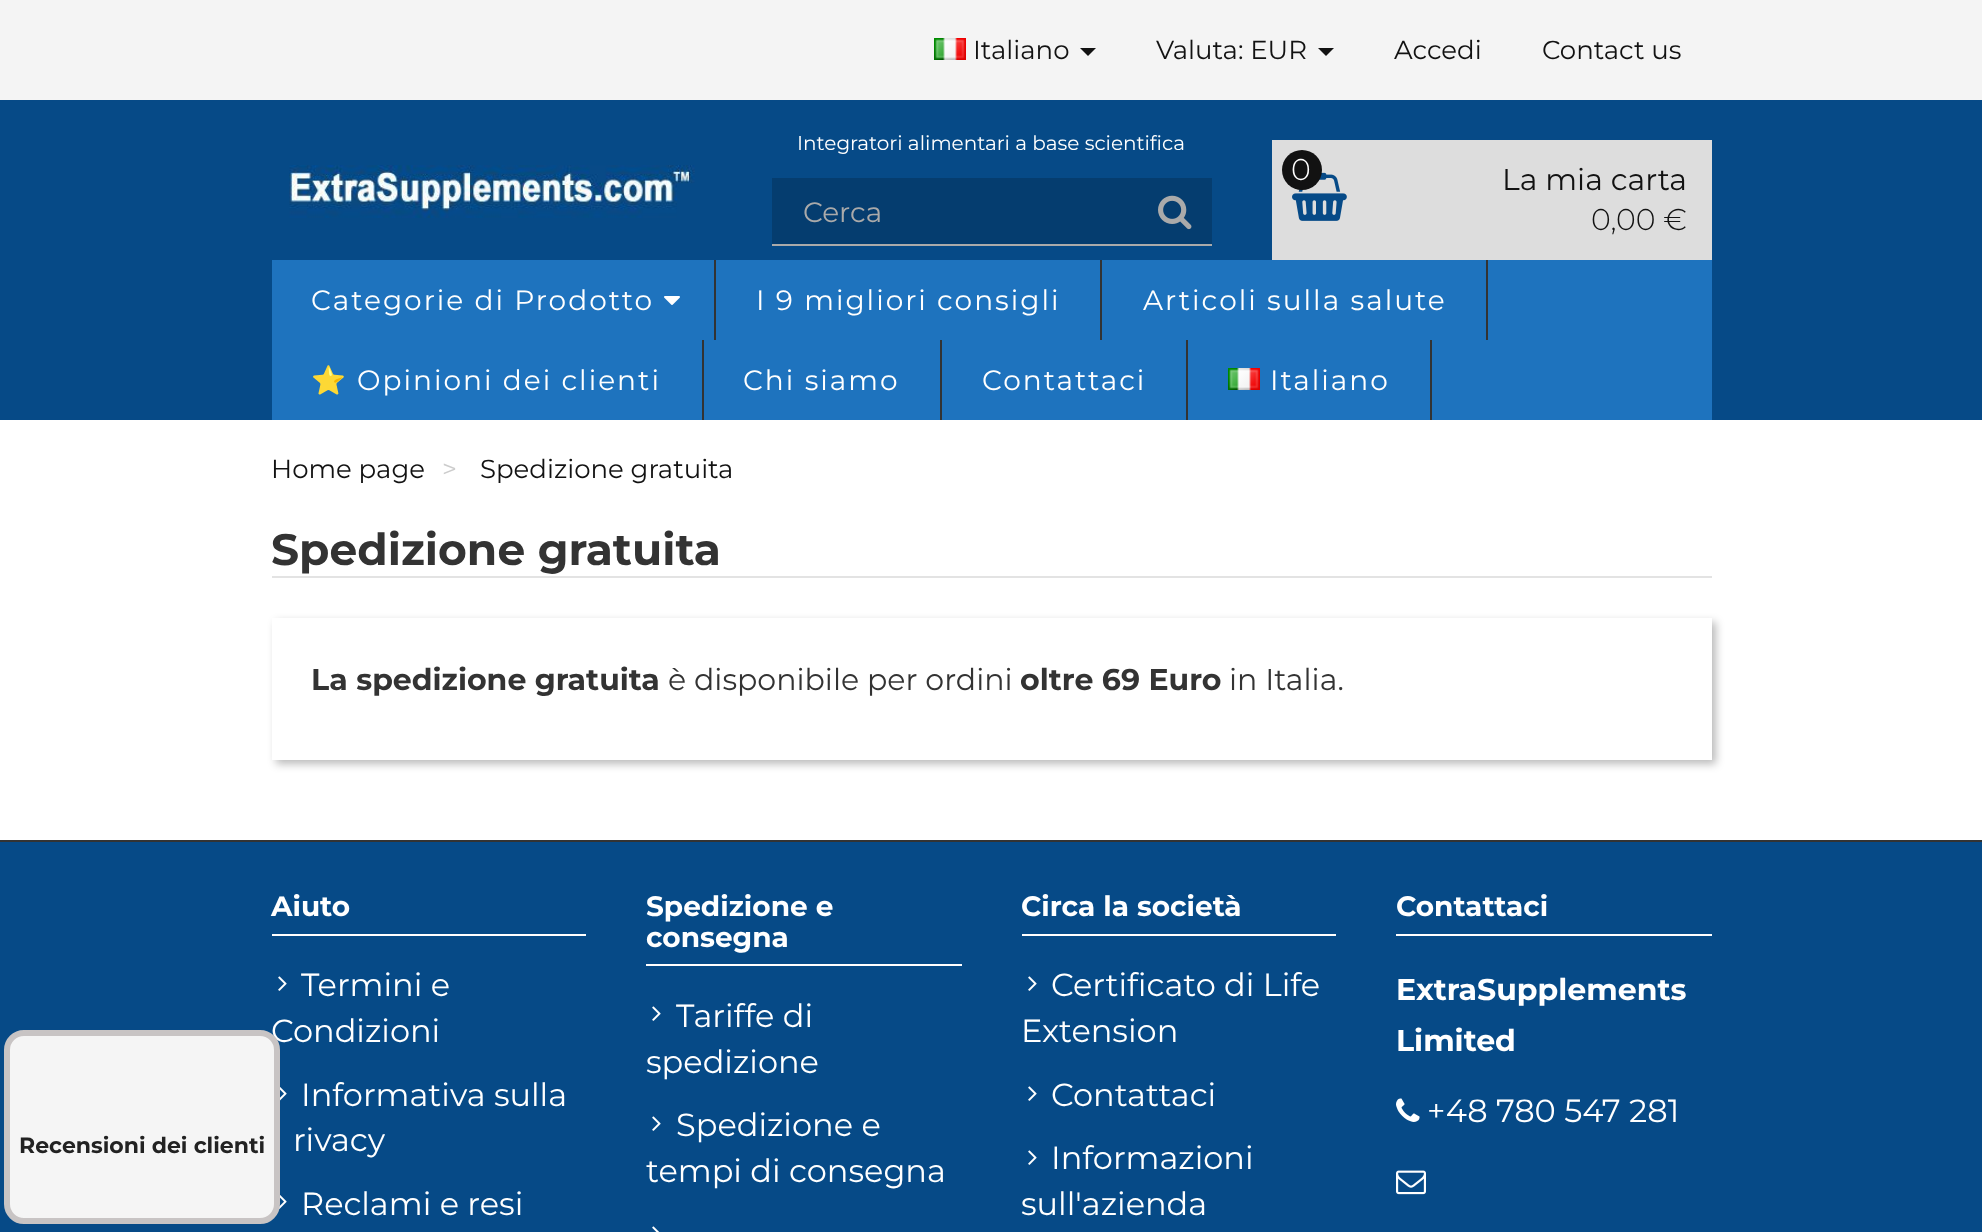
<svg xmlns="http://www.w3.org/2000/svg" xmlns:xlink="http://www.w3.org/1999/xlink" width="1982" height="1232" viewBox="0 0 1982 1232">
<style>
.cls-1{font:26px Montserrat;fill:#121212}
.cls-2{font:20px Montserrat;fill:#ffffff}
.cls-3{font:28px Montserrat;fill:#aaaaaa}
.cls-4{font:300 30px Montserrat;fill:#ffffff}
.cls-5{font:30px Montserrat;fill:#121212}
.cls-6{font:300 30px Montserrat;fill:#121212}
.cls-7{font:28px Montserrat;letter-spacing:2px;fill:#ffffff}
.cls-8{font:28px Noto Color Emoji;letter-spacing:2px;fill:#ffffff}
.cls-9{font:26px Montserrat;fill:#cccccc}
.cls-10{font:bold 44px Montserrat;fill:#333333}
.cls-11{font:bold 30px Montserrat;fill:#333333}
.cls-12{font:30px Montserrat;fill:#333333}
.cls-13{font:bold 28px Montserrat;fill:#ffffff}
.cls-14{font:bold 30px Montserrat;fill:#ffffff}
.cls-15{font:32px Montserrat;fill:#ffffff}
.cls-16{font:bold 22px Montserrat;fill:#222222}
</style>
<defs>
<clipPath id="clip1"><path d="M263 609H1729V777H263ZM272 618H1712V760H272Z" clip-rule="evenodd"/></clipPath>
</defs>
<rect width="100%" height="100%" fill="#ffffff"/>
<rect fill="#064a87" x="0" y="100" width="1982" height="320"/>
<rect fill="#f4f4f4" x="0" y="0" width="1982" height="100"/>
<image xlink:href="image0.png" x="934" y="38" width="32" height="22"/>
<path fill="#121212" d="M1080 48H1096L1088 56Z"/>
<path fill="#121212" d="M1318 48H1334L1326 56Z"/>
<image xlink:href="image1.png" x="289" y="165" width="406" height="53"/>
<rect fill="#053d6f" x="772" y="178" width="440" height="66"/>
<rect fill="#aaaaaa" x="772" y="244" width="440" height="2"/>
<image xlink:href="image2.png" x="1158" y="195" width="34" height="35"/>
<rect fill="#dddddd" x="1272" y="140" width="440" height="120"/>
<image xlink:href="image3.png" x="1292" y="172" width="55" height="49"/>
<circle fill="#121212" cx="1302" cy="170" r="20"/>
<rect fill="#1e73be" x="272" y="260" width="1440" height="160"/>
<rect fill="#333333" x="714" y="260" width="2" height="80"/>
<image xlink:href="image4.png" x="664" y="296" width="16" height="9"/>
<rect fill="#333333" x="1100" y="260" width="2" height="80"/>
<rect fill="#333333" x="1486" y="260" width="2" height="80"/>
<rect fill="#333333" x="702" y="340" width="2" height="80"/>
<rect fill="#333333" x="940" y="340" width="2" height="80"/>
<rect fill="#333333" x="1186" y="340" width="2" height="80"/>
<rect fill="#333333" x="1430" y="340" width="2" height="80"/>
<image xlink:href="image0.png" x="1228" y="368" width="32" height="22"/>
<rect fill="#e3e3e3" x="272" y="576" width="1440" height="2"/>
<g clip-path="url(#clip1)">
<rect fill="#000000" fill-opacity="0.27" filter="blur(4px)" x="276" y="622" width="1440" height="142"/>
</g>
<rect fill="#064a87" x="0" y="842" width="1982" height="390"/>
<rect fill="#333333" x="0" y="840" width="1982" height="2"/>
<rect fill="#ffffff" x="1396" y="934" width="316" height="2"/>
<image xlink:href="image5.png" x="1396" y="1098" width="24" height="24"/>
<image xlink:href="image6.png" x="1396" y="1170" width="30" height="25"/>
<rect fill="#ffffff" x="272" y="934" width="314" height="2"/>
<image xlink:href="image7.png" x="278" y="976" width="9" height="15"/>
<image xlink:href="image8.png" x="280" y="1087" width="7" height="14"/>
<image xlink:href="image9.png" x="279" y="1195" width="8" height="14"/>
<rect fill="#ffffff" x="646" y="964" width="316" height="2"/>
<image xlink:href="image7.png" x="652" y="1006" width="9" height="15"/>
<image xlink:href="image7.png" x="652" y="1116" width="9" height="15"/>
<image xlink:href="image10.png" x="652" y="1226" width="7" height="6"/>
<rect fill="#ffffff" x="1022" y="934" width="314" height="2"/>
<image xlink:href="image7.png" x="1028" y="976" width="9" height="15"/>
<image xlink:href="image7.png" x="1028" y="1086" width="9" height="15"/>
<image xlink:href="image7.png" x="1028" y="1150" width="9" height="15"/>
<text class="cls-1" x="973" y="59">Italiano</text>
<text class="cls-1" x="1156" y="59">Valuta: EUR</text>
<text class="cls-1" x="1394" y="59">Accedi</text>
<text class="cls-1" x="1542" y="59">Contact us</text>
<text class="cls-2" x="797" y="150">Integratori alimentari a base scientifica</text>
<text class="cls-3" x="803" y="222">Cerca</text>
<text class="cls-4" x="1291" y="180">0</text>
<text class="cls-5" x="1502" y="190">La mia carta</text>
<text class="cls-6" x="1591" y="230">0,00 €</text>
<text class="cls-7" x="311" y="310">Categorie di Prodotto</text>
<text class="cls-7" x="756" y="310">I 9 migliori consigli</text>
<text class="cls-7" x="1143" y="310">Articoli sulla salute</text>
<text class="cls-8" x="311" y="390">⭐</text>
<text class="cls-7" x="357" y="390">Opinioni dei clienti</text>
<text class="cls-7" x="743" y="390">Chi siamo</text>
<text class="cls-7" x="982" y="390">Contattaci</text>
<text class="cls-7" x="1270" y="390">Italiano</text>
<text class="cls-1" x="271" y="478">Home page</text>
<text class="cls-9" x="442" y="478">&gt;</text>
<text class="cls-1" x="480" y="478">Spedizione gratuita</text>
<text class="cls-10" x="271" y="565">Spedizione gratuita</text>
<text class="cls-11" x="311" y="690">La spedizione gratuita</text>
<text class="cls-12" x="668" y="690">è disponibile per ordini</text>
<text class="cls-11" x="1020" y="690">oltre 69 Euro</text>
<text class="cls-12" x="1229" y="690">in Italia.</text>
<text class="cls-13" x="1396" y="916">Contattaci</text>
<text class="cls-14"><tspan x="1396" y="1000">ExtraSupplements</tspan><tspan x="1396" y="1051">Limited</tspan></text>
<text class="cls-15" x="1427" y="1122">+48 780 547 281</text>
<text class="cls-13" x="271" y="916">Aiuto</text>
<text class="cls-15" x="301" y="996">Termini e</text>
<text class="cls-15" x="271" y="1042">Condizioni</text>
<rect fill="#f5f5f5" stroke="#c8c4c4" stroke-width="6" x="7" y="1033" width="270" height="188" rx="17"/>
<text class="cls-16" x="19" y="1153">Recensioni dei clienti</text>
<text class="cls-15" x="301" y="1106">Informativa sulla</text>
<text class="cls-15" x="293" y="1151">rivacy</text>
<text class="cls-15" x="301" y="1215">Reclami e resi</text>
<text class="cls-13"><tspan x="646" y="916">Spedizione e</tspan><tspan x="646" y="947">consegna</tspan></text>
<text class="cls-15" x="676" y="1027">Tariffe di</text>
<text class="cls-15" x="646" y="1073">spedizione</text>
<text class="cls-15" x="676" y="1136">Spedizione e</text>
<text class="cls-15" x="646" y="1182">tempi di consegna</text>
<text class="cls-13" x="1021" y="916">Circa la società</text>
<text class="cls-15" x="1051" y="996">Certificato di Life</text>
<text class="cls-15" x="1021" y="1042">Extension</text>
<text class="cls-15"><tspan x="1051" y="1106">Contattaci</tspan><tspan x="1051" y="1169">Informazioni</tspan></text>
<text class="cls-15" x="1021" y="1215">sull'azienda</text>
</svg>
